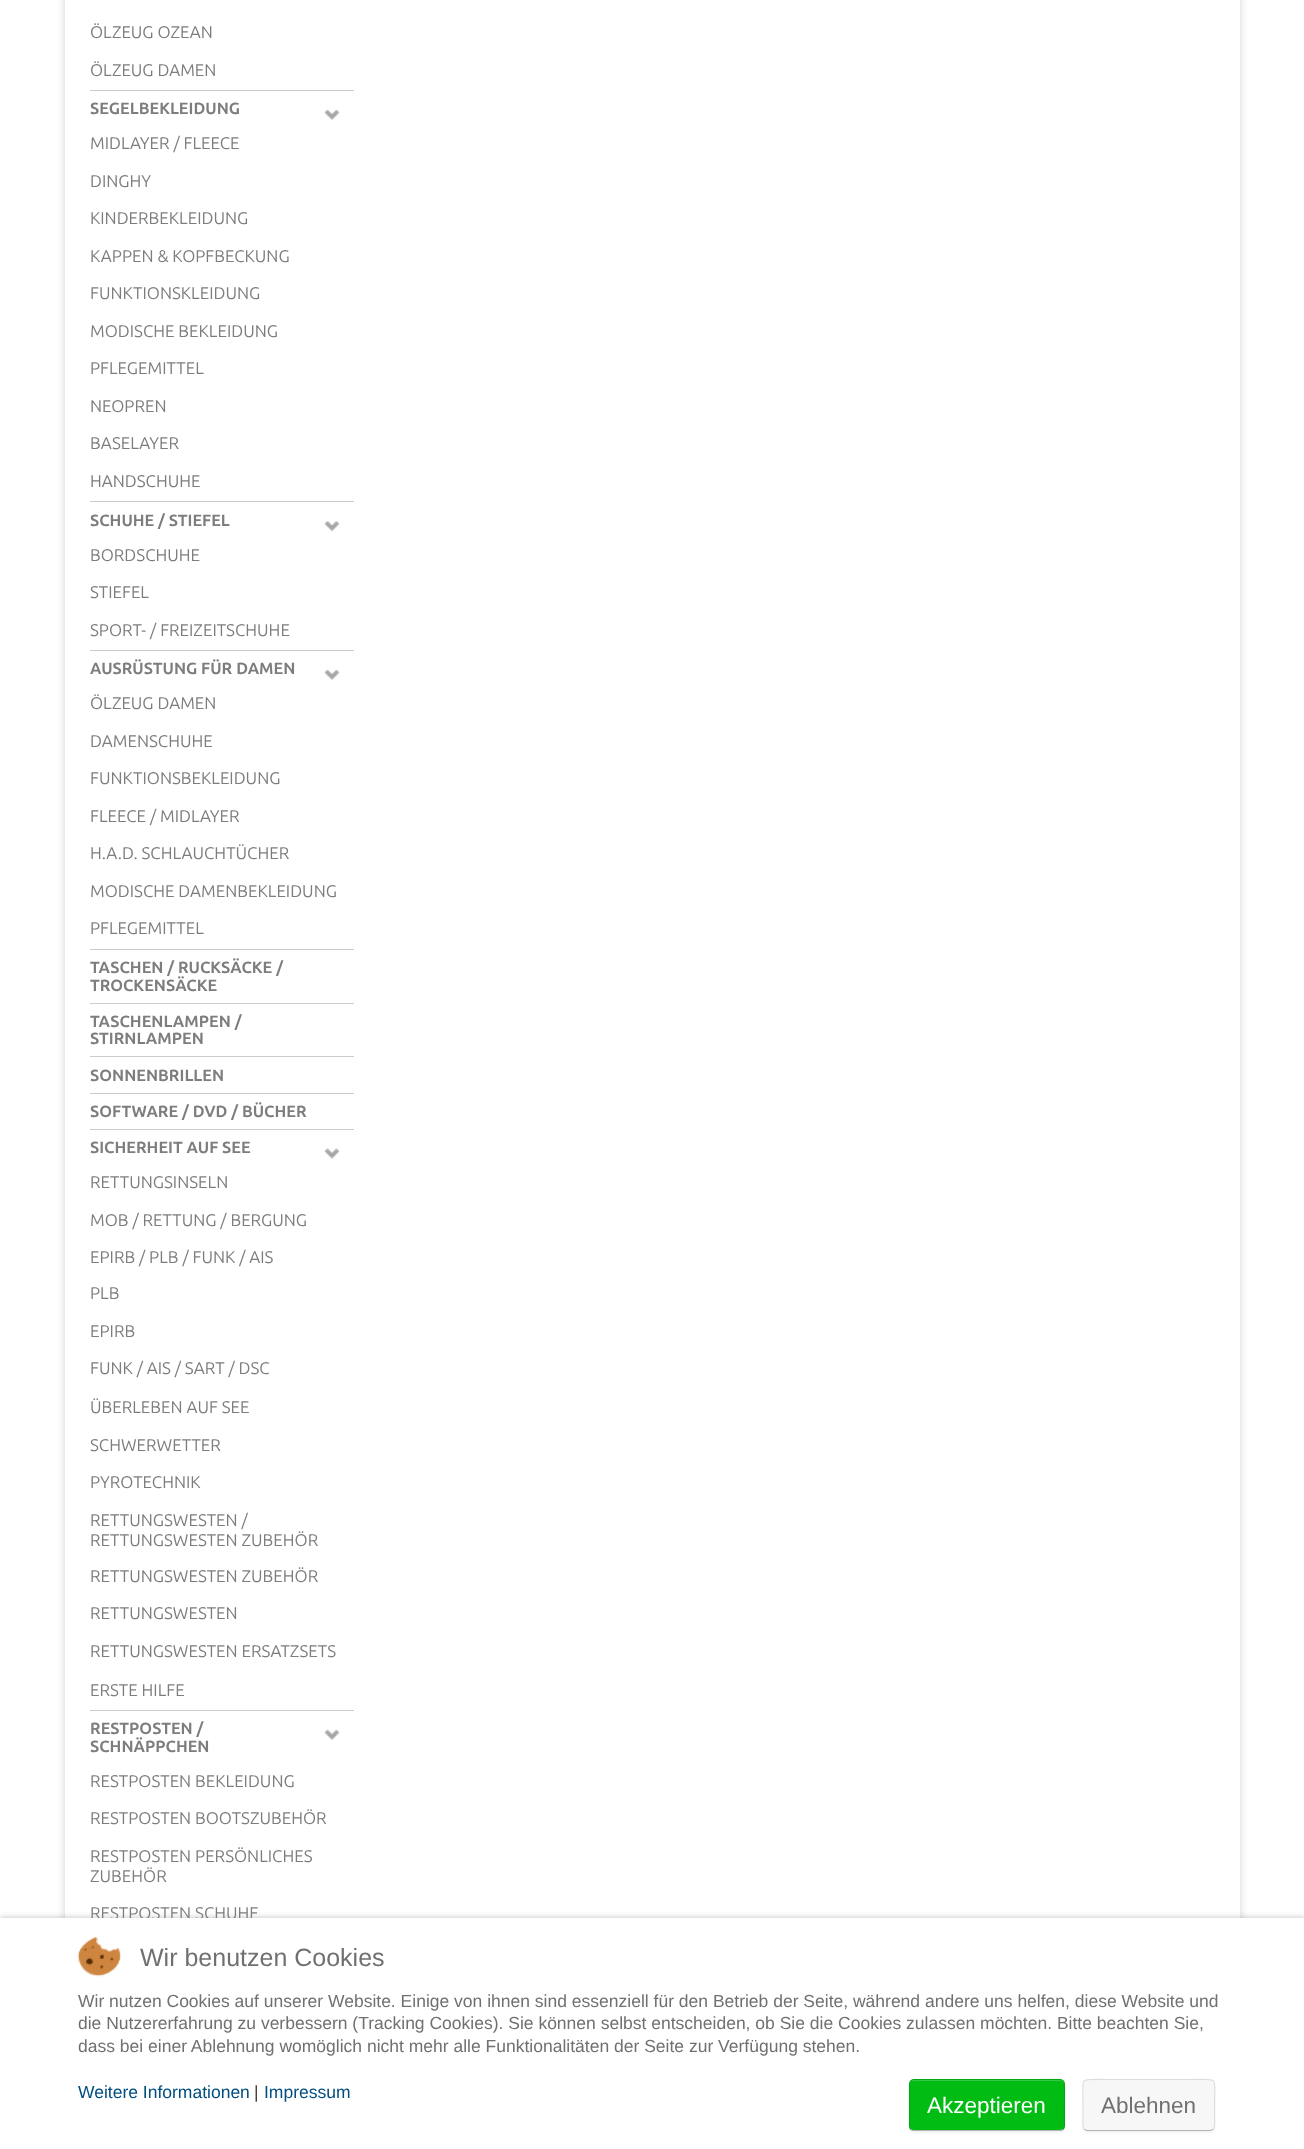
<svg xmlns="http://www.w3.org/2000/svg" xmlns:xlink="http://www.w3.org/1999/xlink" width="1304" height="2149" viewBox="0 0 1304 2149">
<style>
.cls-1{font:16.9px Ubuntu;fill:#7d7d7d}
.cls-2{font:bold 16.25px Ubuntu;fill:#7d7d7d}
.cls-3{font:25px Liberation Sans;fill:#707070}
.cls-4{font:17.5px Liberation Sans;fill:#707070}
.cls-5{font:17.5px Liberation Sans;fill:#004d80}
.cls-6{font:17.5px Liberation Sans;fill:#414141}
.cls-7{font:22.5px Liberation Sans;fill:#ffffff}
.cls-8{font:22.5px Liberation Sans;fill:#707070}
</style>
<defs>
<clipPath id="clip1"><path d="M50 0H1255V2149H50ZM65-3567H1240V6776H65Z" clip-rule="evenodd"/></clipPath>
</defs>
<rect width="100%" height="100%" fill="#ffffff"/>
<g clip-path="url(#clip1)">
<rect fill="#000000" fill-opacity="0.17" filter="blur(4.5px)" x="65" y="-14" width="1175" height="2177"/>
</g>
<rect fill="#cccccc" x="90" y="90" width="264" height="1"/>
<rect fill="#cccccc" x="90" y="501" width="264" height="1"/>
<image xlink:href="image0.png" x="324" y="109" width="16" height="11"/>
<rect fill="#cccccc" x="90" y="650" width="264" height="1"/>
<image xlink:href="image1.png" x="324" y="521" width="16" height="11"/>
<rect fill="#cccccc" x="90" y="949" width="264" height="1"/>
<image xlink:href="image0.png" x="324" y="669" width="16" height="11"/>
<rect fill="#cccccc" x="90" y="1003" width="264" height="1"/>
<rect fill="#cccccc" x="90" y="1056" width="264" height="1"/>
<rect fill="#cccccc" x="90" y="1093" width="264" height="1"/>
<rect fill="#cccccc" x="90" y="1129" width="264" height="1"/>
<rect fill="#cccccc" x="90" y="1710" width="264" height="1"/>
<image xlink:href="image2.png" x="324" y="1148" width="16" height="11"/>
<image xlink:href="image0.png" x="324" y="1729" width="16" height="11"/>
<rect fill="#000000" fill-opacity="0.25" filter="blur(3px)" x="0" y="1918" width="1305" height="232"/>
<text class="cls-1" x="90" y="38">ÖLZEUG OZEAN</text>
<text class="cls-1" x="90" y="76">ÖLZEUG DAMEN</text>
<text class="cls-2" x="90" y="114">SEGELBEKLEIDUNG</text>
<text class="cls-1" x="90" y="149">MIDLAYER / FLEECE</text>
<text class="cls-1" x="90" y="187">DINGHY</text>
<text class="cls-1" x="90" y="224">KINDERBEKLEIDUNG</text>
<text class="cls-1" x="90" y="262">KAPPEN &amp; KOPFBECKUNG</text>
<text class="cls-1" x="90" y="299">FUNKTIONSKLEIDUNG</text>
<text class="cls-1" x="90" y="337">MODISCHE BEKLEIDUNG</text>
<text class="cls-1" x="90" y="374">PFLEGEMITTEL</text>
<text class="cls-1" x="90" y="412">NEOPREN</text>
<text class="cls-1" x="90" y="449">BASELAYER</text>
<text class="cls-1" x="90" y="487">HANDSCHUHE</text>
<text class="cls-2" x="90" y="526">SCHUHE / STIEFEL</text>
<text class="cls-1" x="90" y="561">BORDSCHUHE</text>
<text class="cls-1" x="90" y="598">STIEFEL</text>
<text class="cls-1" x="90" y="636">SPORT- / FREIZEITSCHUHE</text>
<text class="cls-2" x="90" y="674">AUSRÜSTUNG FÜR DAMEN</text>
<text class="cls-1" x="90" y="709">ÖLZEUG DAMEN</text>
<text class="cls-1" x="90" y="747">DAMENSCHUHE</text>
<text class="cls-1" x="90" y="784">FUNKTIONSBEKLEIDUNG</text>
<text class="cls-1" x="90" y="822">FLEECE / MIDLAYER</text>
<text class="cls-1" x="90" y="859">H.A.D. SCHLAUCHTÜCHER</text>
<text class="cls-1" x="90" y="897">MODISCHE DAMENBEKLEIDUNG</text>
<text class="cls-1" x="90" y="934">PFLEGEMITTEL</text>
<text class="cls-2"><tspan x="90" y="973">TASCHEN / RUCKSÄCKE /</tspan><tspan x="90" y="991">TROCKENSÄCKE</tspan></text>
<text class="cls-2"><tspan x="90" y="1027">TASCHENLAMPEN /</tspan><tspan x="90" y="1044">STIRNLAMPEN</tspan></text>
<text class="cls-2" x="90" y="1081">SONNENBRILLEN</text>
<text class="cls-2" x="90" y="1117">SOFTWARE / DVD / BÜCHER</text>
<text class="cls-2" x="90" y="1153">SICHERHEIT AUF SEE</text>
<text class="cls-1" x="90" y="1188">RETTUNGSINSELN</text>
<text class="cls-1" x="90" y="1226">MOB / RETTUNG / BERGUNG</text>
<text class="cls-1" x="90" y="1263">EPIRB / PLB / FUNK / AIS</text>
<text class="cls-1" x="90" y="1299">PLB</text>
<text class="cls-1" x="90" y="1337">EPIRB</text>
<text class="cls-1" x="90" y="1374">FUNK / AIS / SART / DSC</text>
<text class="cls-1" x="90" y="1413">ÜBERLEBEN AUF SEE</text>
<text class="cls-1" x="90" y="1451">SCHWERWETTER</text>
<text class="cls-1" x="90" y="1488">PYROTECHNIK</text>
<text class="cls-1"><tspan x="90" y="1526">RETTUNGSWESTEN /</tspan><tspan x="90" y="1546">RETTUNGSWESTEN ZUBEHÖR</tspan></text>
<text class="cls-1" x="90" y="1582">RETTUNGSWESTEN ZUBEHÖR</text>
<text class="cls-1" x="90" y="1619">RETTUNGSWESTEN</text>
<text class="cls-1" x="90" y="1657">RETTUNGSWESTEN ERSATZSETS</text>
<text class="cls-1" x="90" y="1696">ERSTE HILFE</text>
<text class="cls-2"><tspan x="90" y="1734">RESTPOSTEN /</tspan><tspan x="90" y="1752">SCHNÄPPCHEN</tspan></text>
<text class="cls-1" x="90" y="1787">RESTPOSTEN BEKLEIDUNG</text>
<text class="cls-1" x="90" y="1824">RESTPOSTEN BOOTSZUBEHÖR</text>
<text class="cls-1"><tspan x="90" y="1862">RESTPOSTEN PERSÖNLICHES</tspan><tspan x="90" y="1882">ZUBEHÖR</tspan></text>
<text class="cls-1" x="90" y="1919">RESTPOSTEN SCHUHE</text>
<rect fill="#ffffff" x="0" y="1918" width="1304" height="231"/>
<image xlink:href="image3.png" x="77" y="1936" width="45" height="41"/>
<text class="cls-3" x="140" y="1966">Wir benutzen Cookies</text>
<text class="cls-4"><tspan x="78" y="2007">Wir nutzen Cookies auf unserer Website. Einige von ihnen sind essenziell für den Betrieb der Seite, während andere uns helfen, diese Website und</tspan><tspan x="78" y="2029">die Nutzererfahrung zu verbessern (Tracking Cookies). Sie können selbst entscheiden, ob Sie die Cookies zulassen möchten. Bitte beachten Sie,</tspan><tspan x="78" y="2052">dass bei einer Ablehnung womöglich nicht mehr alle Funktionalitäten der Seite zur Verfügung stehen.</tspan></text>
<text class="cls-5" x="78" y="2098">Weitere Informationen</text>
<text class="cls-6" x="254" y="2098">|</text>
<text class="cls-5" x="264" y="2098">Impressum</text>
<rect fill="#000000" fill-opacity="0.05" filter="blur(1px)" x="909" y="2080" width="156" height="53" rx="5"/>
<rect fill="#00bc13" x="909" y="2079" width="156" height="52" rx="5"/>
<path fill="#33c942" d="M914 2081H1060C1062 2081 1064 2083 1064 2085C1064 2082 1063 2080 1060 2080H913C911 2081 910 2083 910 2085C910 2083 912 2081 914 2081Z"/>
<path fill="none" stroke="#b3b3b3" stroke-width="1.2" d="M1063 2129.5C1062.5 2130 1061 2130.5 1060 2130.5H914C912.5 2130.5 911.5 2130 910.5 2129.5"/>
<path fill="none" stroke="#000000" stroke-opacity="0.1" stroke-width="1.2" d="M910.5 2129.5C908.5 2127 909.5 2121.5 909.5 2119V2091C909.5 2087.5 908 2079.5 914 2079.5H1035.5C1069.5 2079.5 1064.5 2073.5 1064.5 2105V2119C1064.5 2121.5 1065.5 2127 1063 2129.5"/>
<text class="cls-7" x="927" y="2113">Akzeptieren</text>
<rect fill="#000000" fill-opacity="0.05" filter="blur(1px)" x="1083" y="2080" width="132" height="53" rx="5"/>
<rect fill="#f7f7f7" x="1083" y="2079" width="132" height="52" rx="5"/>
<path fill="none" stroke="#b3b3b3" stroke-width="1.2" d="M1213 2129.5L1210 2130.5H1087L1084.5 2129.5"/>
<path fill="none" stroke="#000000" stroke-opacity="0.1" stroke-width="1.2" d="M1084.5 2129.5C1082 2127 1083 2121.5 1083 2119V2105C1083 2075 1077.5 2079.5 1108 2079.5H1189.5C1220 2079.5 1214.5 2075 1214.5 2105V2119C1214.5 2121.5 1215.5 2127 1213 2129.5"/>
<text class="cls-8" x="1101" y="2113">Ablehnen</text>
</svg>
